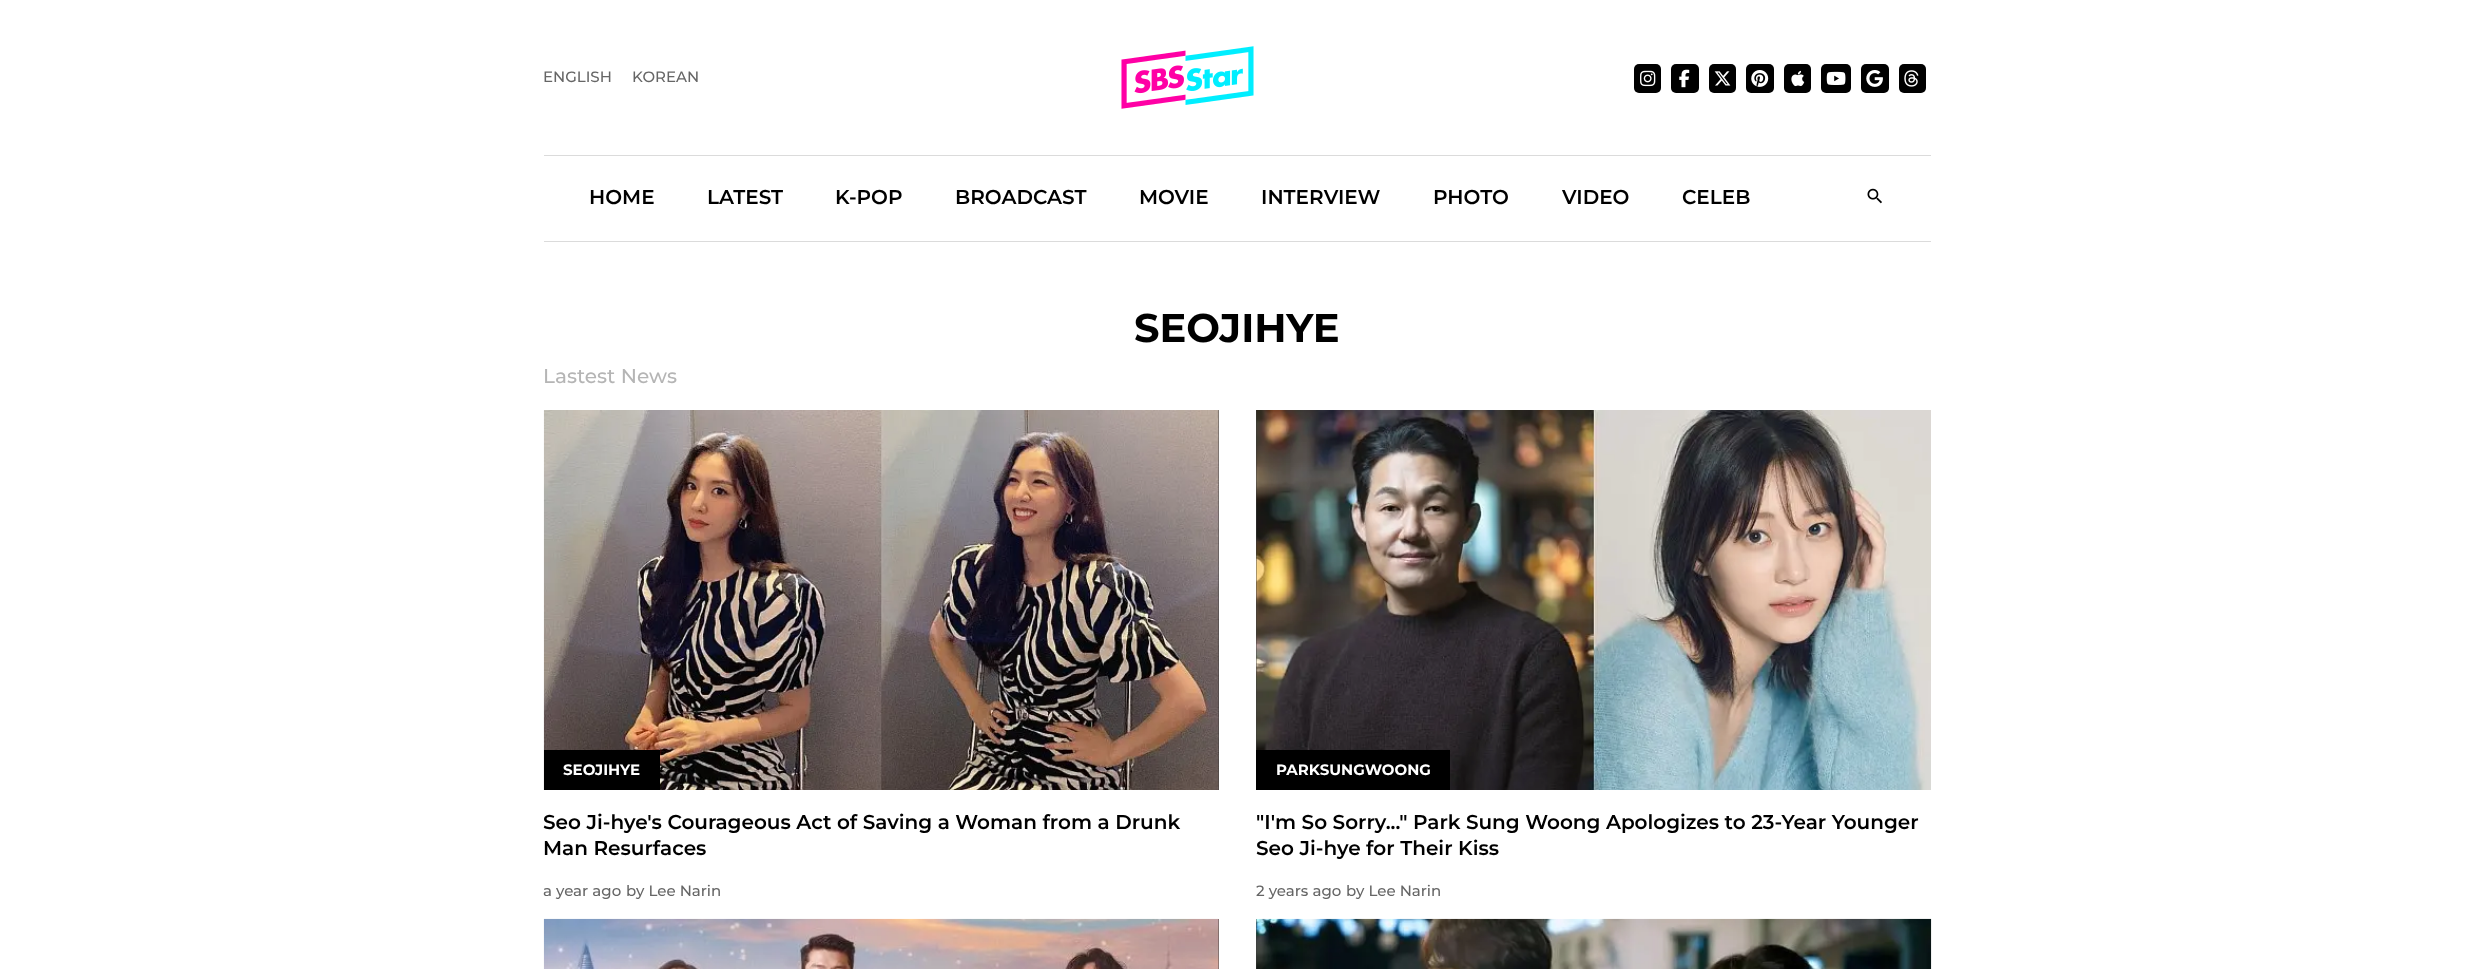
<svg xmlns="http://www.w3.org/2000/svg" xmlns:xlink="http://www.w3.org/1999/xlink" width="2473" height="969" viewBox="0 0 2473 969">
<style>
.cls-1{font:500 15px Montserrat;fill:#666666}
.cls-2{font:600 20px Montserrat;fill:#000000}
.cls-3{font:bold 40px Montserrat;fill:#000000}
.cls-4{font:500 20px Montserrat;fill:#b5b5b5}
.cls-5{font:bold 15px Montserrat;fill:#ffffff}
</style>
<rect width="100%" height="100%" fill="#ffffff"/>
<rect fill="#dbdbdb" x="544" y="155" width="1387" height="1"/>
<image xlink:href="image0.png" x="1121" y="46" width="133" height="63"/>
<rect fill="#000000" x="1634" y="64" width="27" height="29" rx="5"/>
<image xlink:href="image1.png" x="1640" y="70" width="16" height="17"/>
<rect fill="#000000" x="1671" y="64" width="28" height="29" rx="5"/>
<image xlink:href="image2.png" x="1679" y="69" width="11" height="19"/>
<rect fill="#000000" x="1709" y="64" width="27" height="29" rx="5"/>
<image xlink:href="image3.png" x="1714" y="71" width="17" height="15"/>
<rect fill="#000000" x="1746" y="64" width="28" height="29" rx="5"/>
<image xlink:href="image4.png" x="1751" y="70" width="18" height="17"/>
<rect fill="#000000" x="1784" y="64" width="27" height="29" rx="5"/>
<image xlink:href="image5.png" x="1791" y="70" width="14" height="17"/>
<rect fill="#000000" x="1821" y="64" width="30" height="29" rx="5"/>
<image xlink:href="image6.png" x="1826" y="71" width="20" height="14"/>
<rect fill="#000000" x="1861" y="64" width="28" height="29" rx="5"/>
<image xlink:href="image7.png" x="1866" y="70" width="17" height="17"/>
<rect fill="#000000" x="1899" y="64" width="27" height="29" rx="5"/>
<image xlink:href="image8.png" x="1904" y="70" width="15" height="17"/>
<rect fill="#dbdbdb" x="544" y="241" width="1387" height="1"/>
<image xlink:href="image9.png" x="1867" y="188" width="15" height="16"/>
<rect fill="#3a3a3a" x="1218" y="410" width="1" height="380"/>
<image xlink:href="image10.png" x="543" y="410" width="676" height="380"/>
<rect fill="#000000" x="544" y="750" width="116" height="40"/>
<rect fill="#3a3a3a" x="1256" y="410" width="1" height="340"/>
<image xlink:href="image11.png" x="1256" y="410" width="675" height="380"/>
<rect fill="#000000" x="1256" y="750" width="194" height="40"/>
<rect fill="#3a3a3a" x="1218" y="919" width="1" height="50"/>
<image xlink:href="image12.png" x="543" y="918" width="676" height="51"/>
<rect fill="#3a3a3a" x="1256" y="919" width="1" height="50"/>
<image xlink:href="image13.png" x="1256" y="918" width="676" height="51"/>
<text class="cls-1" x="543" y="82">ENGLISH</text>
<text class="cls-1" x="632" y="82">KOREAN</text>
<text class="cls-2" x="589" y="204">HOME</text>
<text class="cls-2" x="707" y="204">LATEST</text>
<text class="cls-2" x="835" y="204">K-POP</text>
<text class="cls-2" x="955" y="204">BROADCAST</text>
<text class="cls-2" x="1139" y="204">MOVIE</text>
<text class="cls-2" x="1261" y="204">INTERVIEW</text>
<text class="cls-2" x="1433" y="204">PHOTO</text>
<text class="cls-2" x="1562" y="204">VIDEO</text>
<text class="cls-2" x="1682" y="204">CELEB</text>
<text class="cls-3" x="1134" y="342">SEOJIHYE</text>
<text class="cls-4" x="543" y="383">Lastest News</text>
<text class="cls-5" x="563" y="775">SEOJIHYE</text>
<text class="cls-2"><tspan x="543" y="829">Seo Ji-hye's Courageous Act of Saving a Woman from a Drunk</tspan><tspan x="543" y="855">Man Resurfaces</tspan></text>
<text class="cls-1" x="543" y="896">a year ago</text>
<text class="cls-1" x="626" y="896">by Lee Narin</text>
<text class="cls-5" x="1276" y="775">PARKSUNGWOONG</text>
<text class="cls-2"><tspan x="1256" y="829">"I'm So Sorry..." Park Sung Woong Apologizes to 23-Year Younger</tspan><tspan x="1256" y="855">Seo Ji-hye for Their Kiss</tspan></text>
<text class="cls-1" x="1256" y="896">2 years ago</text>
<text class="cls-1" x="1346" y="896">by Lee Narin</text>
</svg>
